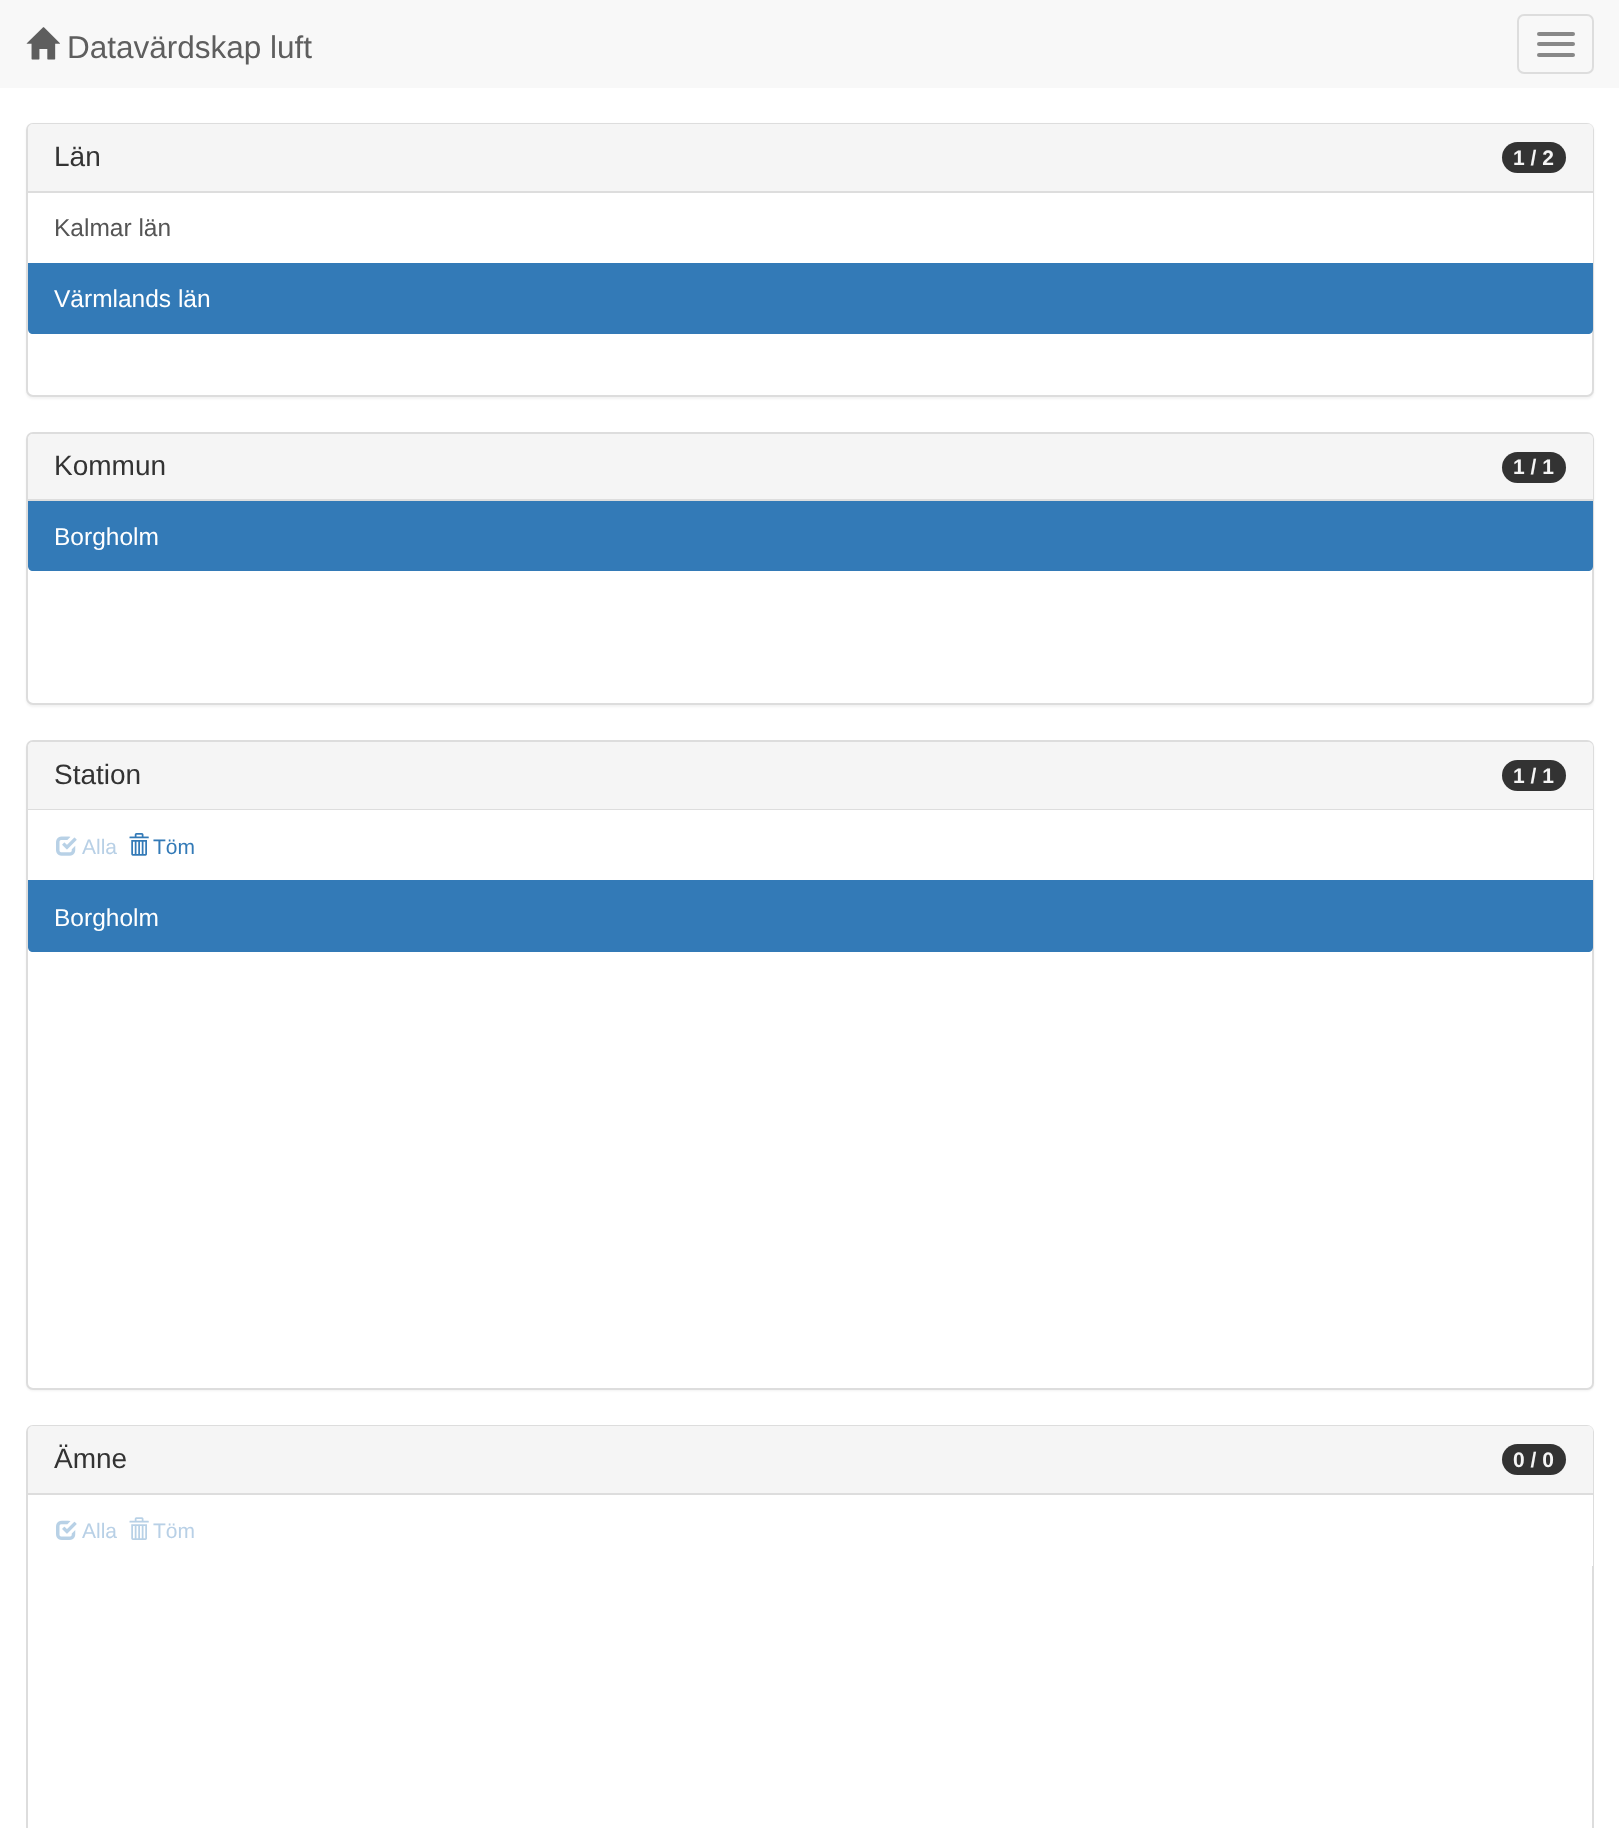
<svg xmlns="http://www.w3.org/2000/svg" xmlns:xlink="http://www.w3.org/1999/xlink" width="1619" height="1828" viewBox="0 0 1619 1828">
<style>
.cls-1{font:31.5px Liberation Sans;fill:#5e5e5e}
.cls-2{font:28px Liberation Sans;fill:#333333}
.cls-3{font:bold 21px Liberation Sans;fill:#f5f5f5}
.cls-4{font:24.5px Liberation Sans;fill:#555555}
.cls-5{font:24.5px Liberation Sans;fill:#ffffff}
.cls-6{font:21px Liberation Sans;fill:#b8d0e6}
.cls-7{font:21px Liberation Sans;fill:#337ab7}
</style>
<rect width="100%" height="100%" fill="#ffffff"/>
<rect fill="#f8f8f8" x="0" y="0" width="1619" height="88"/>
<image xlink:href="image0.png" x="26" y="27" width="34" height="33"/>
<rect fill="none" stroke="#dddddd" stroke-width="2" x="1518" y="15" width="75" height="58" rx="6"/>
<rect fill="#888888" x="1537" y="32" width="38" height="4" rx="2"/>
<rect fill="#888888" x="1537" y="42" width="38" height="4" rx="2"/>
<rect fill="#888888" x="1537" y="53" width="38" height="4" rx="2"/>
<rect fill="#000000" fill-opacity="0.05" filter="blur(1px)" x="26" y="124" width="1568" height="275" rx="7"/>
<rect fill="#ffffff" stroke="#dddddd" stroke-width="2" x="27" y="124" width="1566" height="272" rx="6"/>
<path fill="#f5f5f5" d="M33 124H1588C1591 124 1593 126 1593 129V193H28V129C28 126 30 124 33 124Z"/>
<rect fill="#dddddd" x="28" y="191" width="1565" height="2"/>
<rect fill="#333333" x="1502" y="142" width="64" height="31" rx="15.5"/>
<rect fill="#ffffff" x="1592" y="193" width="1" height="70"/>
<path fill="#337ab7" d="M28 263H1593V329C1593 332 1591 334 1588 334H33C30 334 28 332 28 329Z"/>
<rect fill="#000000" fill-opacity="0.05" filter="blur(1px)" x="26" y="434" width="1568" height="273" rx="7"/>
<rect fill="#ffffff" stroke="#dddddd" stroke-width="2" x="27" y="433" width="1566" height="271" rx="6"/>
<path fill="#f5f5f5" d="M33 434H1588C1591 434 1593 436 1593 439V501H28V439C28 436 30 434 33 434Z"/>
<rect fill="#dddddd" x="28" y="499" width="1565" height="2"/>
<rect fill="#333333" x="1502" y="452" width="64" height="31" rx="15.5"/>
<path fill="#337ab7" d="M28 501H1593V566C1593 569 1591 571 1588 571H33C30 571 28 569 28 566Z"/>
<rect fill="#000000" fill-opacity="0.05" filter="blur(1px)" x="26" y="742" width="1568" height="649" rx="7"/>
<rect fill="#ffffff" stroke="#dddddd" stroke-width="2" x="27" y="741" width="1566" height="648" rx="6"/>
<path fill="#f5f5f5" d="M33 742H1588C1591 742 1593 744 1593 747V810H28V747C28 744 30 742 33 742Z"/>
<rect fill="#dddddd" x="28" y="809" width="1565" height="1"/>
<rect fill="#333333" x="1502" y="760" width="64" height="31" rx="15.5"/>
<rect fill="#ffffff" x="1592" y="810" width="1" height="70"/>
<image xlink:href="image1.png" x="56" y="836" width="21" height="20"/>
<image xlink:href="image2.png" x="129" y="833" width="20" height="23"/>
<path fill="#337ab7" d="M28 880H1593V947C1593 950 1591 952 1588 952H33C30 952 28 950 28 947Z"/>
<rect fill="none" stroke="#dddddd" stroke-width="2" x="27" y="1426" width="1566" height="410" rx="6"/>
<path fill="#f5f5f5" d="M33 1426H1588C1591 1426 1593 1428 1593 1431V1495H28V1431C28 1428 30 1426 33 1426Z"/>
<rect fill="#dddddd" x="28" y="1493" width="1565" height="2"/>
<rect fill="#333333" x="1502" y="1444" width="64" height="31" rx="15.5"/>
<rect fill="#ffffff" x="1592" y="1495" width="1" height="71"/>
<image xlink:href="image3.png" x="56" y="1520" width="21" height="20"/>
<image xlink:href="image4.png" x="129" y="1517" width="20" height="23"/>
<text class="cls-1" x="67" y="58">Datavärdskap luft</text>
<text class="cls-2" x="54" y="166">Län</text>
<text class="cls-3" x="1513" y="165">1 / 2</text>
<text class="cls-4" x="54" y="236">Kalmar län</text>
<text class="cls-5" x="54" y="307">Värmlands län</text>
<text class="cls-2" x="54" y="475">Kommun</text>
<text class="cls-3" x="1513" y="474">1 / 1</text>
<text class="cls-5" x="54" y="545">Borgholm</text>
<text class="cls-2" x="54" y="784">Station</text>
<text class="cls-3" x="1513" y="783">1 / 1</text>
<text class="cls-6" x="82" y="854">Alla</text>
<text class="cls-7" x="153" y="854">Töm</text>
<text class="cls-5" x="54" y="926">Borgholm</text>
<text class="cls-2" x="54" y="1468">Ämne</text>
<text class="cls-3" x="1513" y="1467">0 / 0</text>
<text class="cls-6" x="82" y="1538">Alla</text>
<text class="cls-6" x="153" y="1538">Töm</text>
</svg>
